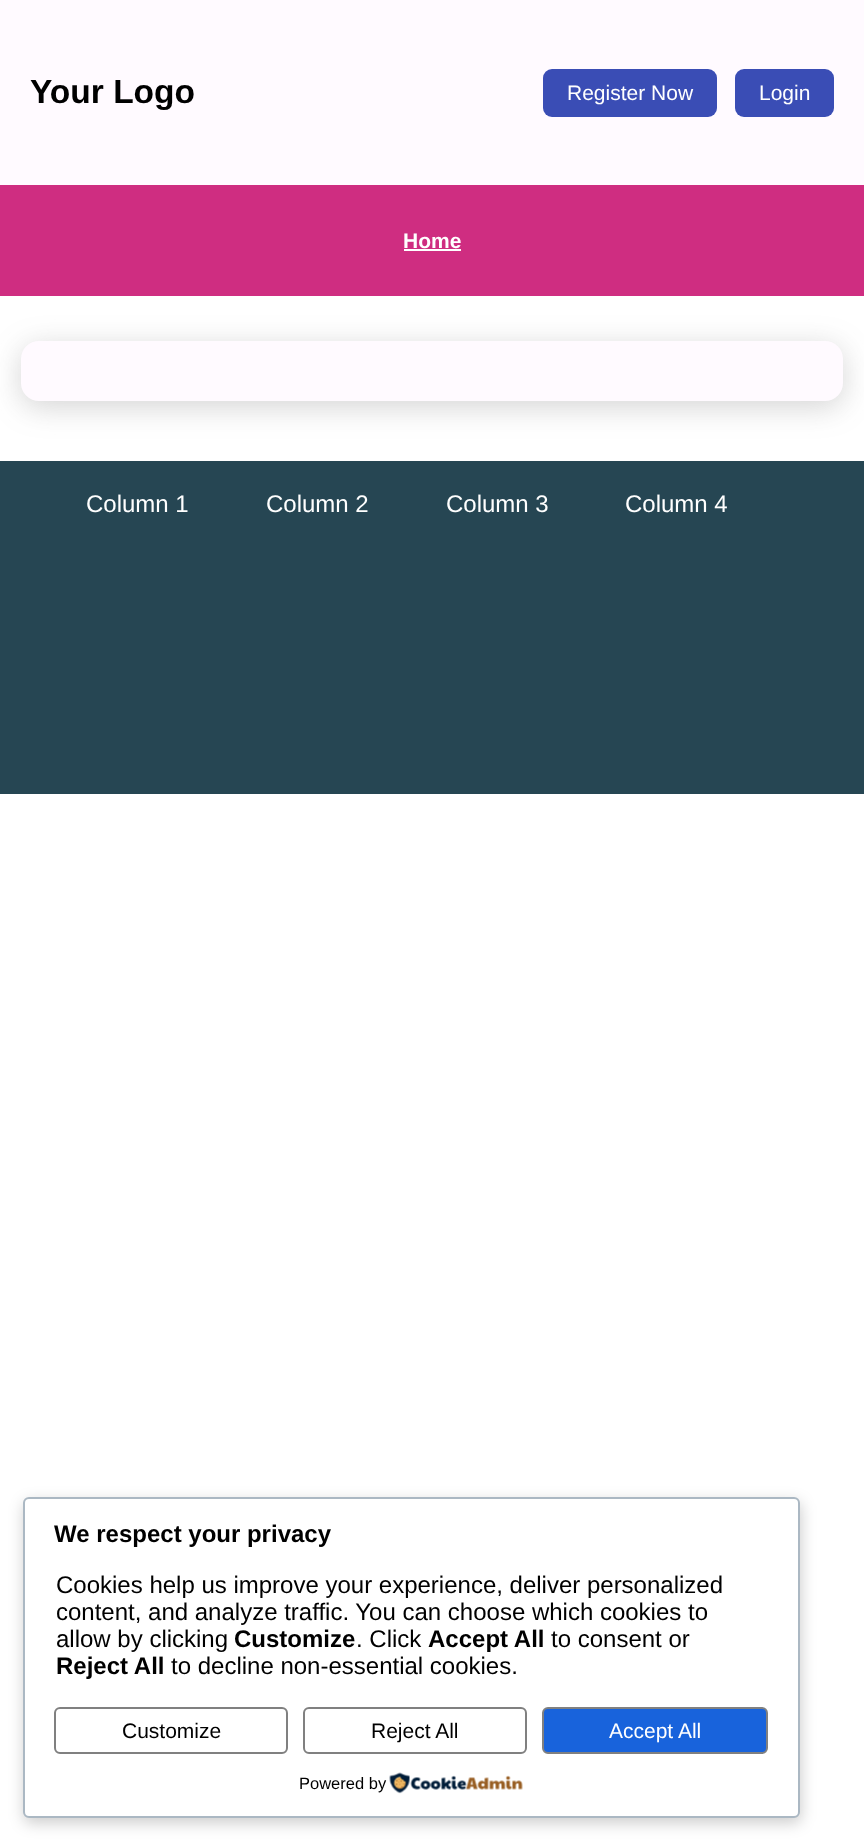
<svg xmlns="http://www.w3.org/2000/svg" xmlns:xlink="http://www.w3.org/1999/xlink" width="864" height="1848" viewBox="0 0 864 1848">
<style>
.cls-1{font:bold 33.5px Liberation Sans;fill:#000000}
.cls-2{font:21px Liberation Sans;fill:#ffffff}
.cls-3{font:bold 21px Liberation Sans;fill:#ffffff}
.cls-4{font:24px Liberation Sans;fill:#ffffff}
.cls-5{font:bold 24px Liberation Sans;fill:#000000}
.cls-6{font:24px Liberation Sans;fill:#000000}
.cls-7{font:21px Liberation Sans;fill:#000000}
.cls-8{font:16.5px Liberation Sans;fill:#000000}
</style>
<rect width="100%" height="100%" fill="#ffffff"/>
<rect fill="#fffaff" x="0" y="0" width="864" height="185"/>
<rect fill="#3a4db5" x="543" y="69" width="174" height="48" rx="9"/>
<rect fill="#3a4db5" x="735" y="69" width="99" height="48" rx="9"/>
<rect fill="#cf2d81" x="0" y="185" width="864" height="111"/>
<rect fill="#ffffff" x="404" y="249" width="57" height="2"/>
<rect fill="#535353" fill-opacity="0.25" filter="blur(15px)" x="21" y="347" width="822" height="60" rx="18"/>
<rect fill="#fffaff" x="21" y="341" width="822" height="60" rx="18"/>
<rect fill="#264653" x="0" y="461" width="864" height="333"/>
<rect fill="#000000" fill-opacity="0.2" filter="blur(7.5px)" x="24" y="1502" width="777" height="321" rx="6"/>
<rect fill="#ffffff" stroke="#abb8c3" stroke-width="2" x="24" y="1498" width="775" height="319" rx="5"/>
<rect fill="none" stroke="#808080" stroke-width="2" x="55" y="1708" width="232" height="45" rx="5"/>
<rect fill="none" stroke="#808080" stroke-width="2" x="304" y="1708" width="222" height="45" rx="5"/>
<rect fill="#1863dc" stroke="#808080" stroke-width="2" x="543" y="1708" width="224" height="45" rx="5"/>
<image xlink:href="image0.png" x="389" y="1772" width="134" height="22"/>
<text class="cls-1" x="30" y="103">Your Logo</text>
<text class="cls-2" x="567" y="100">Register Now</text>
<text class="cls-2" x="759" y="100">Login</text>
<text class="cls-3" x="403" y="248">Home</text>
<text class="cls-4" x="86" y="512">Column 1</text>
<text class="cls-4" x="266" y="512">Column 2</text>
<text class="cls-4" x="446" y="512">Column 3</text>
<text class="cls-4" x="625" y="512">Column 4</text>
<text class="cls-5" x="54" y="1542">We respect your privacy</text>
<text class="cls-6"><tspan x="56" y="1593">Cookies help us improve your experience, deliver personalized</tspan><tspan x="56" y="1620">content, and analyze traffic. You can choose which cookies to</tspan><tspan x="56" y="1647">allow by clicking</tspan></text>
<text class="cls-5" x="234" y="1647">Customize</text>
<text class="cls-6" x="356" y="1647">. Click</text>
<text class="cls-5" x="428" y="1647">Accept All</text>
<text class="cls-6" x="551" y="1647">to consent or</text>
<text class="cls-5" x="56" y="1674">Reject All</text>
<text class="cls-6" x="171" y="1674">to decline non-essential cookies.</text>
<text class="cls-7" x="122" y="1738">Customize</text>
<text class="cls-7" x="371" y="1738">Reject All</text>
<text class="cls-2" x="609" y="1738">Accept All</text>
<text class="cls-8" x="299" y="1789">Powered by</text>
</svg>
